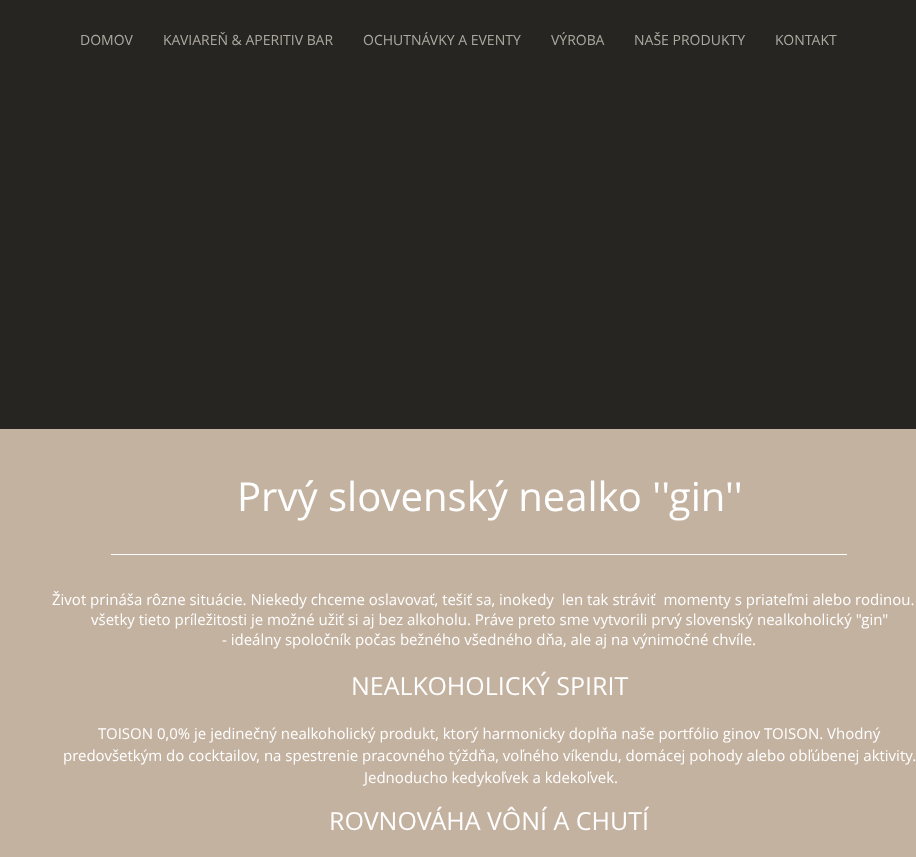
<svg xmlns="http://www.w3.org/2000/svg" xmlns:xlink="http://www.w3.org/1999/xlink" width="916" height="857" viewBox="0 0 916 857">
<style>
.cls-1{font:14px Open Sans;fill:#ada9a0}
.cls-2{font:40px Open Sans;fill:#ffffff}
.cls-3{font:15px Open Sans;fill:#ffffff}
.cls-4{font:25px Open Sans;fill:#ffffff}
</style>
<rect width="100%" height="100%" fill="#c4b2a0"/>
<rect fill="#272521" x="0" y="0" width="916" height="429"/>
<rect fill="#ffffff" x="111" y="554" width="736" height="1"/>
<text class="cls-1" x="80" y="45">DOMOV</text>
<text class="cls-1" x="163" y="45">KAVIAREŇ &amp; APERITIV BAR</text>
<text class="cls-1" x="363" y="45">OCHUTNÁVKY A EVENTY</text>
<text class="cls-1" x="551" y="45">VÝROBA</text>
<text class="cls-1" x="634" y="45">NAŠE PRODUKTY</text>
<text class="cls-1" x="775" y="45">KONTAKT</text>
<text class="cls-2" x="237" y="511">Prvý slovenský nealko ''gin''</text>
<text class="cls-3" xml:space="preserve" x="52" y="605">Život prináša rôzne situácie. Niekedy chceme oslavovať, tešiť sa, inokedy  len tak stráviť  momenty s priateľmi alebo rodinou.</text>
<text class="cls-3" x="91" y="625">všetky tieto príležitosti je možné užiť si aj bez alkoholu. Práve preto sme vytvorili prvý slovenský nealkoholický "gin"</text>
<text class="cls-3" x="222" y="645">- ideálny spoločník počas bežného všedného dňa, ale aj na výnimočné chvíle.</text>
<text class="cls-4" x="351" y="695">NEALKOHOLICKÝ SPIRIT</text>
<text class="cls-3" x="98" y="739">TOISON 0,0% je jedinečný nealkoholický produkt, ktorý harmonicky doplňa naše portfólio ginov TOISON. Vhodný</text>
<text class="cls-3" x="63" y="761">predovšetkým do cocktailov, na spestrenie pracovného týždňa, voľného víkendu, domácej pohody alebo obľúbenej aktivity.</text>
<text class="cls-3" x="364" y="783">Jednoducho kedykoľvek a kdekoľvek.</text>
<text class="cls-4" x="329" y="830">ROVNOVÁHA VÔNÍ A CHUTÍ</text>
</svg>
